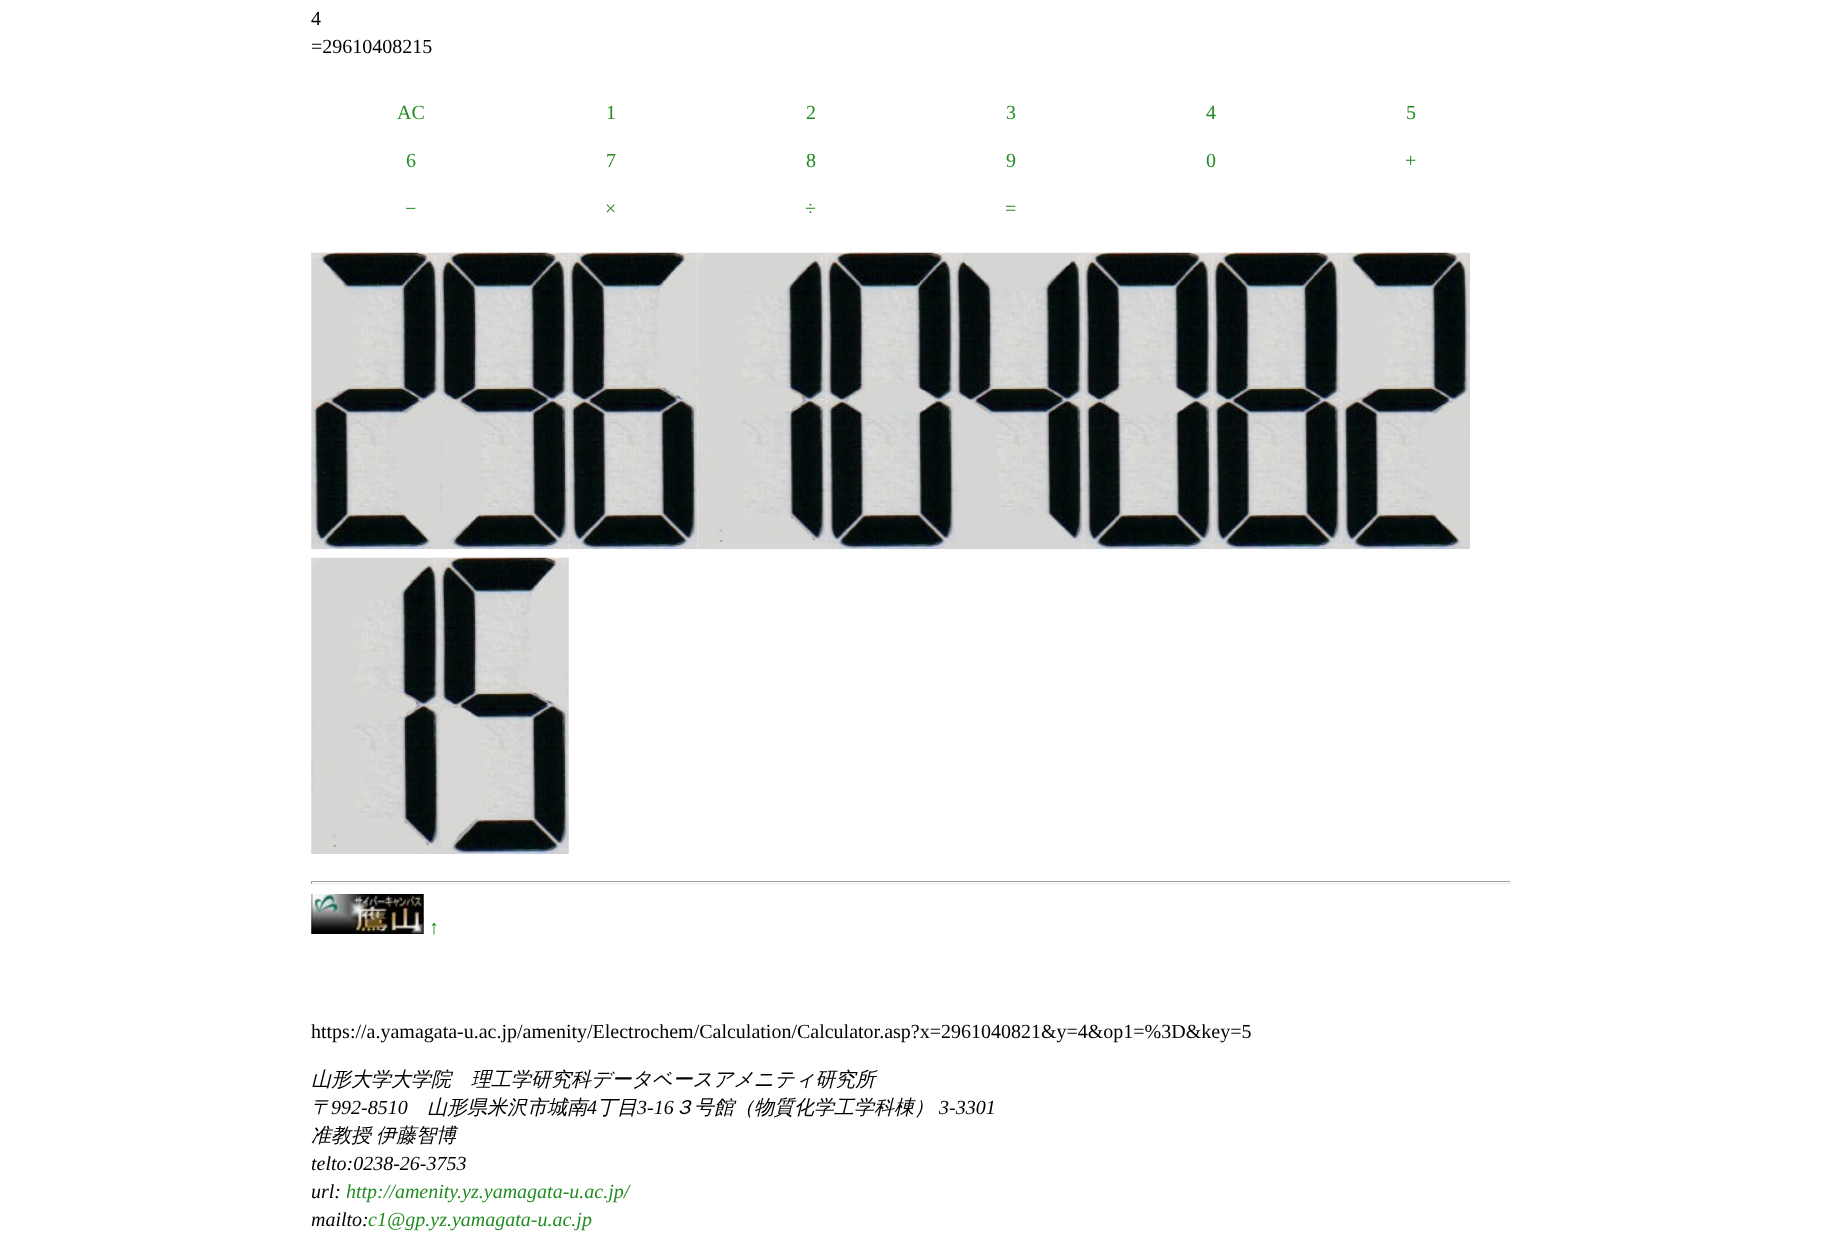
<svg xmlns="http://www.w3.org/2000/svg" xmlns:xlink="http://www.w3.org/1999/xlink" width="1821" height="1260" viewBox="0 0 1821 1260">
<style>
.cls-1{font:20px Liberation Serif;fill:#000000}
.cls-2{font:20px Liberation Serif;fill:#228b22}
.cls-3{font:italic 500 20px WenQuanYi Zen Hei;fill:#000000}
.cls-4{font:italic 20px Liberation Serif;fill:#000000}
.cls-5{font:italic 20px Liberation Serif;fill:#228b22}
</style>
<rect width="100%" height="100%" fill="#ffffff"/>
<image xlink:href="image0.png" x="311" y="252" width="129" height="297"/>
<image xlink:href="image1.png" x="440" y="252" width="129" height="297"/>
<image xlink:href="image2.png" x="568" y="252" width="130" height="297"/>
<image xlink:href="image3.png" x="697" y="252" width="130" height="297"/>
<image xlink:href="image4.png" x="826" y="252" width="129" height="297"/>
<image xlink:href="image5.png" x="955" y="252" width="129" height="297"/>
<image xlink:href="image6.png" x="1083" y="252" width="130" height="297"/>
<image xlink:href="image7.png" x="1212" y="252" width="130" height="297"/>
<image xlink:href="image8.png" x="1341" y="252" width="129" height="297"/>
<image xlink:href="image9.png" x="311" y="557" width="129" height="297"/>
<image xlink:href="image10.png" x="440" y="557" width="129" height="297"/>
<rect fill="#9f9f9f" x="311" y="881" width="1200" height="1"/>
<rect fill="#eeeeee" x="1510" y="881" width="1" height="3"/>
<rect fill="#eeeeee" x="311" y="883" width="1200" height="1"/>
<rect fill="#9f9f9f" x="311" y="881" width="1" height="3"/>
<image xlink:href="image11.png" x="311" y="894" width="113" height="40"/>
<text class="cls-1"><tspan x="311" y="25">4</tspan><tspan x="311" y="53">=29610408215</tspan></text>
<text class="cls-2" x="397" y="119">AC</text>
<text class="cls-2" x="606" y="119">1</text>
<text class="cls-2" x="806" y="119">2</text>
<text class="cls-2" x="1006" y="119">3</text>
<text class="cls-2" x="1206" y="119">4</text>
<text class="cls-2" x="1406" y="119">5</text>
<text class="cls-2" x="406" y="167">6</text>
<text class="cls-2" x="606" y="167">7</text>
<text class="cls-2" x="806" y="167">8</text>
<text class="cls-2" x="1006" y="167">9</text>
<text class="cls-2" x="1206" y="167">0</text>
<text class="cls-2" x="1405" y="167">+</text>
<text class="cls-2" x="405" y="215">−</text>
<text class="cls-2" x="605" y="215">×</text>
<text class="cls-2" x="805" y="215">÷</text>
<text class="cls-2" x="1005" y="215">=</text>
<text class="cls-2" x="429" y="934">↑</text>
<text class="cls-1" x="311" y="1038">https://a.yamagata-u.ac.jp/amenity/Electrochem/Calculation/Calculator.asp?x=2961040821&amp;y=4&amp;op1=%3D&amp;key=5</text>
<text class="cls-3"><tspan x="311" y="1086">山形大学大学院　理工学研究科データベースアメニティ研究所</tspan><tspan x="311" y="1114">〒</tspan></text>
<text class="cls-4" x="331" y="1114">992-8510</text>
<text class="cls-3" x="427" y="1114">山形県米沢市城南</text>
<text class="cls-4" x="587" y="1114">4</text>
<text class="cls-3" x="597" y="1114">丁目</text>
<text class="cls-4" x="637" y="1114">3-16</text>
<text class="cls-3" x="674" y="1114">３号館（物質化学工学科棟）</text>
<text class="cls-4" x="939" y="1114">3-3301</text>
<text class="cls-3" x="311" y="1142" word-spacing="-1">准教授 伊藤智博</text>
<text class="cls-4"><tspan x="311" y="1170">telto:0238-26-3753</tspan><tspan x="311" y="1198">url:</tspan></text>
<text class="cls-5" x="346" y="1198">http://amenity.yz.yamagata-u.ac.jp/</text>
<text class="cls-4" x="311" y="1226">mailto:</text>
<text class="cls-5" x="368" y="1226">c1@gp.yz.yamagata-u.ac.jp</text>
</svg>
